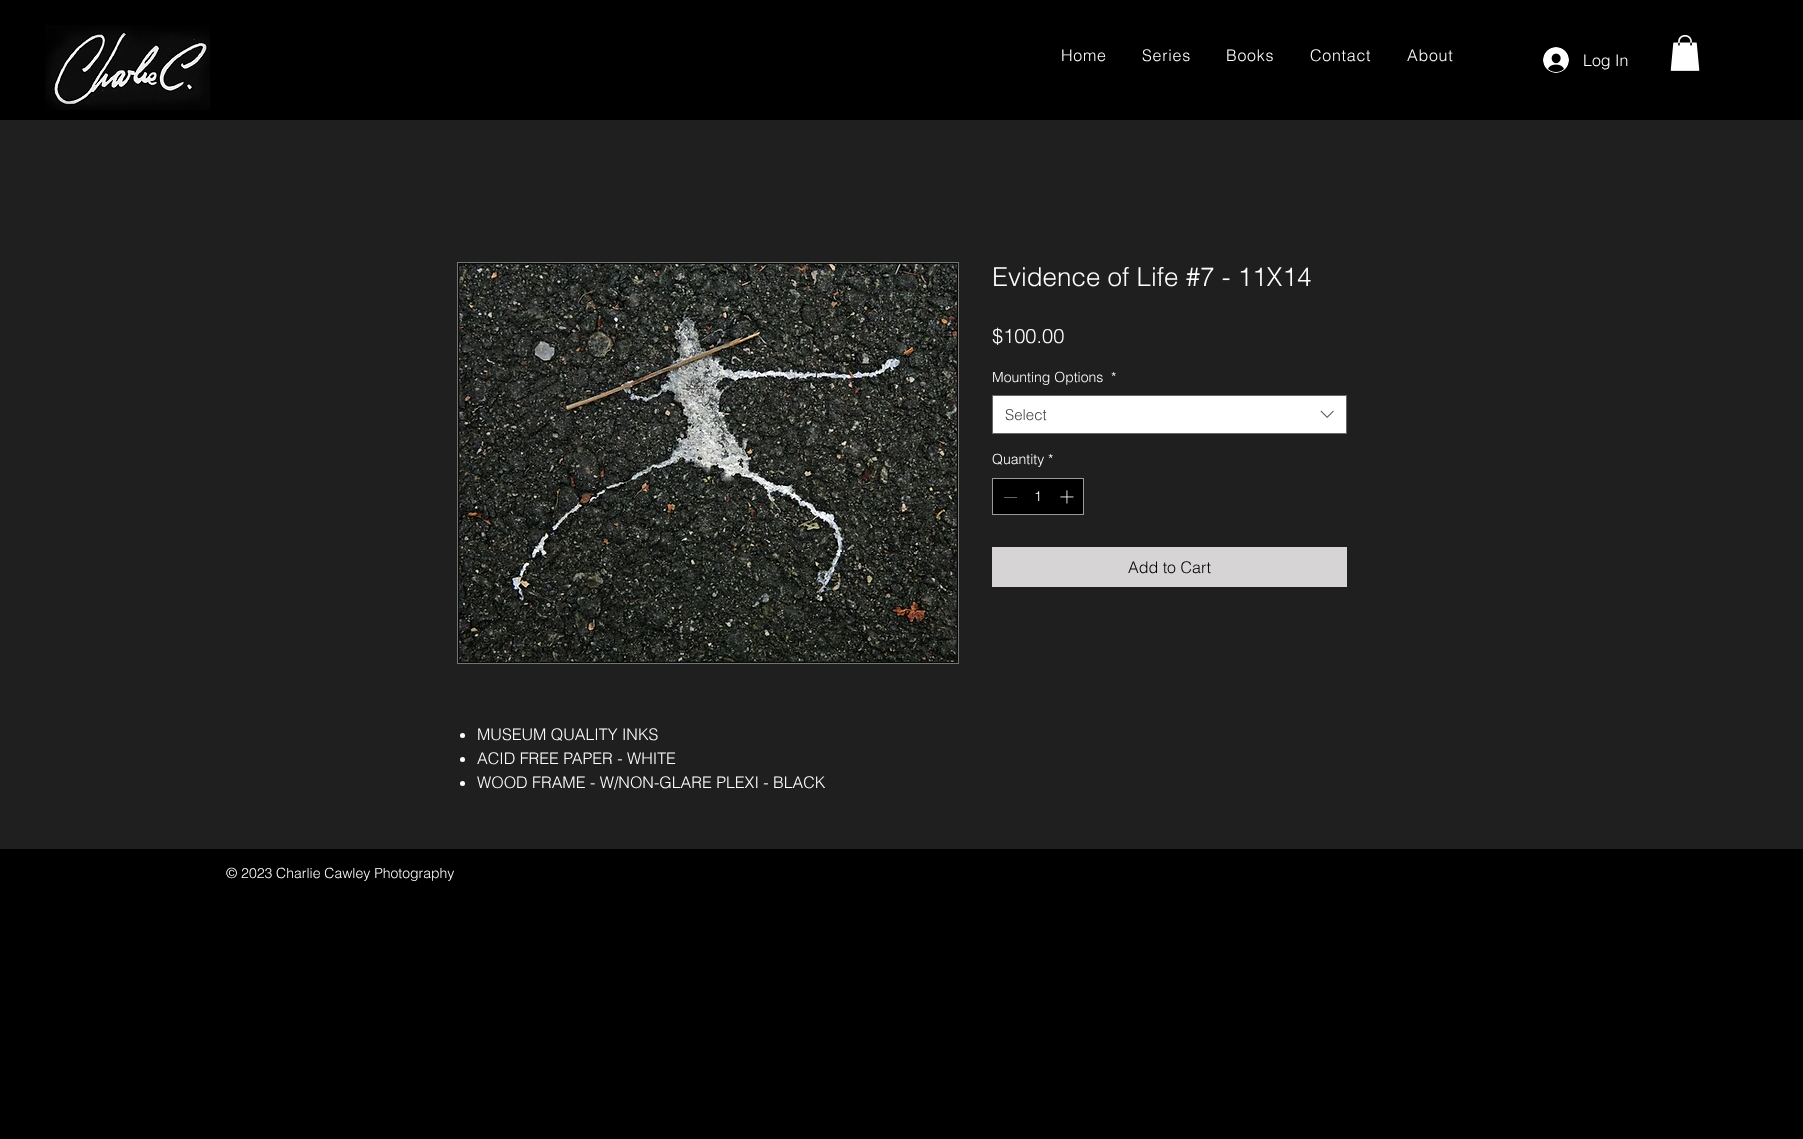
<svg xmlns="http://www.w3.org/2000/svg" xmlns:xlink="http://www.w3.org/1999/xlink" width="1803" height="1139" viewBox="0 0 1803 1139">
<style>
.cls-1{font:300 16px helvetica;letter-spacing:0.75px;fill:#ffffff}
.cls-2{font:300 16px helvetica;fill:#ffffff}
.cls-3{font:300 26px helvetica;fill:#ffffff}
.cls-4{font:300 20px helvetica;fill:#ffffff}
.cls-5{font:300 14px helvetica;fill:#ffffff}
.cls-6{font:300 15px helvetica;fill:#444444}
.cls-7{font:300 16px helvetica;fill:#000000}
</style>
<rect width="100%" height="100%" fill="#000000"/>
<image xlink:href="image0.png" x="45" y="25" width="165" height="85"/>
<image xlink:href="image1.png" x="1543" y="47" width="26" height="26"/>
<image xlink:href="image2.png" x="1670" y="35" width="30" height="36"/>
<rect fill="#1f1f1f" x="0" y="120" width="1803" height="729"/>
<rect fill="#ffffff" stroke="#666666" x="992.5" y="395.5" width="354" height="38"/>
<image xlink:href="image3.png" x="1320" y="410" width="14" height="8"/>
<rect fill="#000000" stroke="#999999" x="992.5" y="478.5" width="91" height="36"/>
<rect fill="#646464" x="1004" y="497" width="13" height="1"/>
<image xlink:href="image4.png" x="1060" y="490" width="14" height="14"/>
<rect fill="#d6d4d4" x="992" y="547" width="355" height="40"/>
<rect fill="none" stroke="#757575" x="457.5" y="262.5" width="501" height="401"/>
<image xlink:href="image5.png" x="458" y="263" width="500" height="400"/>
<circle fill="#ffffff" cx="462.5" cy="735.5" r="2.5"/>
<circle fill="#ffffff" cx="462.5" cy="759.5" r="2.5"/>
<circle fill="#ffffff" cx="462.5" cy="783.5" r="2.5"/>
<text class="cls-1" x="1061" y="61">Home</text>
<text class="cls-1" x="1142" y="61">Series</text>
<text class="cls-1" x="1226" y="61">Books</text>
<text class="cls-1" x="1310" y="61">Contact</text>
<text class="cls-1" x="1407" y="61">About</text>
<text class="cls-2" x="1583" y="66">Log In</text>
<text class="cls-3" x="992" y="286">Evidence of Life #7 - 11X14</text>
<text class="cls-4" x="992" y="343">$100.00</text>
<text class="cls-5" x="992" y="382">Mounting Options</text>
<text class="cls-5" x="1111" y="382">*</text>
<text class="cls-6" x="1005" y="420">Select</text>
<text class="cls-5" x="992" y="464">Quantity *</text>
<text class="cls-5" x="1034" y="501">1</text>
<text class="cls-7" x="1128" y="573">Add to Cart</text>
<text class="cls-2"><tspan x="477" y="740">MUSEUM QUALITY INKS</tspan><tspan x="477" y="764">ACID FREE PAPER - WHITE</tspan><tspan x="477" y="788">WOOD FRAME - W/NON-GLARE PLEXI - BLACK</tspan></text>
<text class="cls-5" x="226" y="878">© 2023 Charlie Cawley Photography</text>
</svg>
